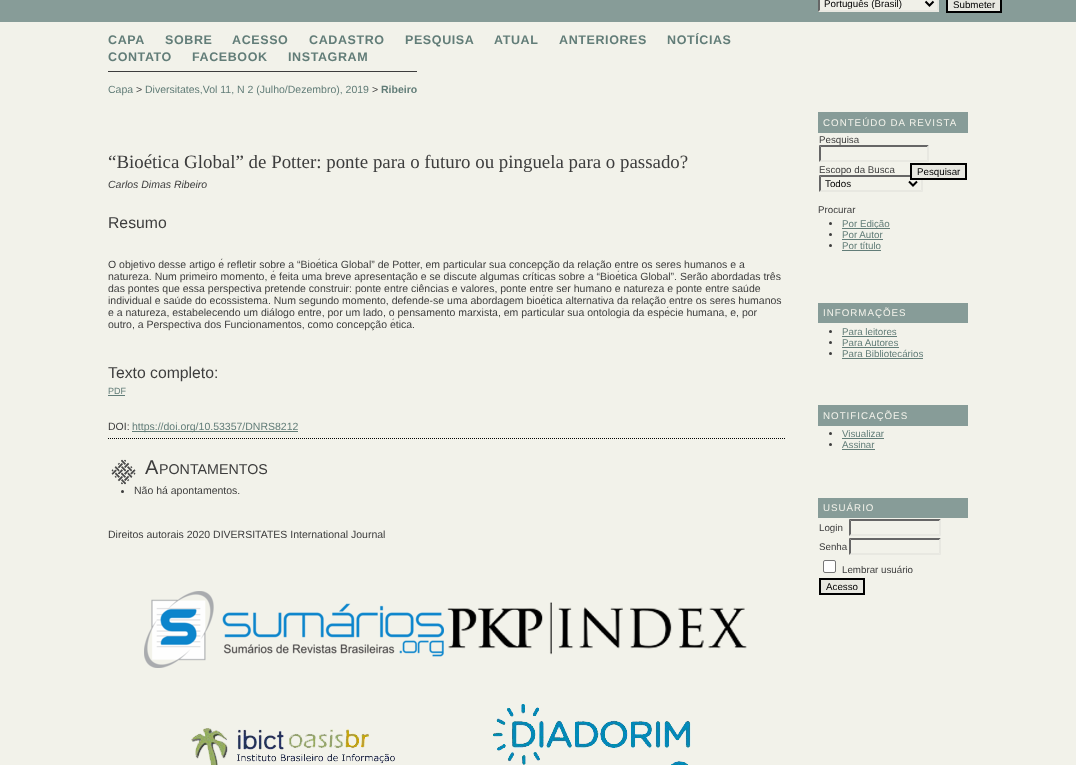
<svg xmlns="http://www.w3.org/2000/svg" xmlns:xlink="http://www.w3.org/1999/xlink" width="1076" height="765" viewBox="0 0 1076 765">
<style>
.cls-1{font:bold 12.5px Liberation Sans;letter-spacing:0.6px;fill:#627d78}
.cls-2{font:10.5px Liberation Sans;fill:#627d78}
.cls-3{font:10.5px Liberation Sans;fill:#3d3d3d}
.cls-4{font:bold 10.5px Liberation Sans;fill:#627d78}
.cls-5{font:18.9px Liberation Serif;fill:#3d3d3d}
.cls-6{font:italic 10.5px Liberation Sans;fill:#3d3d3d}
.cls-7{font:15.75px Liberation Sans;fill:#3d3d3d}
.cls-8{font:9px Liberation Sans;fill:#627d78}
.cls-9{font:20px Liberation Sans;fill:#3d3d3d}
.cls-10{font:14.25px Liberation Sans;fill:#3d3d3d}
.cls-11{font:9.75px Liberation Sans;fill:#000000}
.cls-12{font:9.75px Liberation Sans;letter-spacing:1px;fill:#f2f2ea}
.cls-13{font:9.75px Liberation Sans;fill:#3d3d3d}
.cls-14{font:9.75px Liberation Sans;fill:#627d78}
</style>
<rect width="100%" height="100%" fill="#f2f2ea"/>
<rect fill="#879c98" x="0" y="0" width="1076" height="22"/>
<rect fill="#3d3d3d" x="108" y="71" width="309" height="1"/>
<rect fill="#627d78" x="108" y="395" width="17" height="1"/>
<rect fill="#627d78" x="132" y="431" width="166" height="1"/>
<path fill="none" stroke="#000000" stroke-dasharray="1 1" d="M108 438.5H785"/>
<image xlink:href="image0.png" x="111" y="459" width="25" height="26"/>
<circle fill="#3d3d3d" cx="122.5" cy="491.5" r="1.5"/>
<image xlink:href="image1.png" x="144" y="591" width="300" height="77"/>
<image xlink:href="image2.png" x="447" y="602" width="300" height="53"/>
<image xlink:href="image3.png" x="191" y="728" width="204" height="37"/>
<image xlink:href="image4.png" x="493" y="704" width="198" height="61"/>
<rect fill="#f0f0e8" x="818" y="0" width="121" height="12"/>
<path fill="#e8e8e1" d="M939-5V12L937 10V-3Z"/>
<path fill="#e8e8e1" d="M939 12H818L820 10H937Z"/>
<path fill="#666666" d="M818 12V-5L820-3V10Z"/>
<path fill="none" stroke="#000000" stroke-width="2" d="M925.5 1.5L929.5 5.5L933.5 1.5"/>
<rect fill="#e8e8e1" stroke="#000000" stroke-width="2" x="947" y="-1" width="54" height="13"/>
<rect fill="#879c98" x="818" y="112" width="150" height="21"/>
<path fill="#666666" d="M819 145H929L927 147H821Z"/>
<path fill="#e8e8e1" d="M929 145V162L927 160V147Z"/>
<path fill="#e8e8e1" d="M929 162H819L821 160H927Z"/>
<path fill="#666666" d="M819 162V145L821 147V160Z"/>
<path fill="#666666" d="M819 175H923L921 177H821Z"/>
<path fill="#e8e8e1" d="M923 175V192L921 190V177Z"/>
<path fill="#e8e8e1" d="M923 192H819L821 190H921Z"/>
<path fill="#666666" d="M819 192V175L821 177V190Z"/>
<path fill="none" stroke="#000000" stroke-width="2" d="M909 181.5L913 185.5L917 181.5"/>
<rect fill="#e8e8e1" stroke="#000000" stroke-width="2" x="911" y="164" width="55" height="15"/>
<circle fill="#3d3d3d" cx="830.5" cy="223.5" r="1.5"/>
<rect fill="#627d78" x="842" y="228" width="48" height="1"/>
<circle fill="#3d3d3d" cx="830.5" cy="234.5" r="1.5"/>
<rect fill="#627d78" x="842" y="239" width="41" height="1"/>
<circle fill="#3d3d3d" cx="830.5" cy="245.5" r="1.5"/>
<rect fill="#627d78" x="842" y="250" width="39" height="1"/>
<rect fill="#879c98" x="818" y="303" width="150" height="20"/>
<circle fill="#3d3d3d" cx="830.5" cy="331.5" r="1.5"/>
<rect fill="#627d78" x="842" y="336" width="55" height="1"/>
<circle fill="#3d3d3d" cx="830.5" cy="342.5" r="1.5"/>
<rect fill="#627d78" x="842" y="347" width="57" height="1"/>
<circle fill="#3d3d3d" cx="830.5" cy="353.5" r="1.5"/>
<rect fill="#627d78" x="842" y="358" width="81" height="1"/>
<rect fill="#879c98" x="818" y="405" width="150" height="21"/>
<circle fill="#3d3d3d" cx="830.5" cy="433.5" r="1.5"/>
<rect fill="#627d78" x="842" y="438" width="42" height="1"/>
<circle fill="#3d3d3d" cx="830.5" cy="444.5" r="1.5"/>
<rect fill="#627d78" x="842" y="449" width="33" height="1"/>
<rect fill="#879c98" x="818" y="498" width="150" height="20"/>
<path fill="#666666" d="M849 519H941L939 521H851Z"/>
<path fill="#e8e8e1" d="M941 519V536L939 534V521Z"/>
<path fill="#e8e8e1" d="M941 536H849L851 534H939Z"/>
<path fill="#666666" d="M849 536V519L851 521V534Z"/>
<path fill="#666666" d="M849 538H941L939 540H851Z"/>
<path fill="#e8e8e1" d="M941 538V555L939 553V540Z"/>
<path fill="#e8e8e1" d="M941 555H849L851 553H939Z"/>
<path fill="#666666" d="M849 555V538L851 540V553Z"/>
<rect fill="#ffffff" stroke="#767676" x="823.5" y="560.5" width="12" height="12" rx="1.5"/>
<rect fill="#e8e8e1" stroke="#000000" stroke-width="2" x="820" y="579" width="44" height="15"/>
<text class="cls-1" x="108" y="44">CAPA</text>
<text class="cls-1" x="165" y="44">SOBRE</text>
<text class="cls-1" x="232" y="44">ACESSO</text>
<text class="cls-1" x="309" y="44">CADASTRO</text>
<text class="cls-1" x="405" y="44">PESQUISA</text>
<text class="cls-1" x="494" y="44">ATUAL</text>
<text class="cls-1" x="559" y="44">ANTERIORES</text>
<text class="cls-1" x="667" y="44">NOTÍCIAS</text>
<text class="cls-1" x="108" y="61">CONTATO</text>
<text class="cls-1" x="192" y="61">FACEBOOK</text>
<text class="cls-1" x="288" y="61">INSTAGRAM</text>
<text class="cls-2" x="108" y="93">Capa</text>
<text class="cls-3" x="136" y="93">&gt;</text>
<text class="cls-2" x="145" y="93">Diversitates,Vol 11, N 2 (Julho/Dezembro), 2019</text>
<text class="cls-3" x="372" y="93">&gt;</text>
<text class="cls-4" x="381" y="93">Ribeiro</text>
<text class="cls-5" x="108" y="168">“Bioética Global” de Potter: ponte para o futuro ou pinguela para o passado?</text>
<text class="cls-6" x="108" y="188">Carlos Dimas Ribeiro</text>
<text class="cls-7" x="108" y="228">Resumo</text>
<text class="cls-3"><tspan x="108" y="268">O objetivo desse artigo é refletir sobre a “Bioética Global” de Potter, em particular sua concepção da relação entre os seres humanos e a</tspan><tspan x="108" y="280">natureza. Num primeiro momento, é feita uma breve apresentação e se discute algumas críticas sobre a “Bioética Global”. Serão abordadas três</tspan><tspan x="108" y="292">das pontes que essa perspectiva pretende construir: ponte entre ciências e valores, ponte entre ser humano e natureza e ponte entre saúde</tspan><tspan x="108" y="304">individual e saúde do ecossistema. Num segundo momento, defende-se uma abordagem bioética alternativa da relação entre os seres humanos</tspan><tspan x="108" y="316">e a natureza, estabelecendo um diálogo entre, por um lado, o pensamento marxista, em particular sua ontologia da espécie humana, e, por</tspan><tspan x="108" y="328">outro, a Perspectiva dos Funcionamentos, como concepção ética.</tspan></text>
<text class="cls-7" x="108" y="378">Texto completo:</text>
<text class="cls-8" x="108" y="394">PDF</text>
<text class="cls-3" x="108" y="430">DOI:</text>
<text class="cls-2" x="132" y="430">https://doi.org/10.53357/DNRS8212</text>
<text class="cls-9" x="145" y="474">A</text>
<text class="cls-10" x="159" y="474">PONTAMENTOS</text>
<text class="cls-3" x="134" y="494">Não há apontamentos.</text>
<text class="cls-3" x="108" y="538">Direitos autorais 2020 DIVERSITATES International Journal</text>
<text class="cls-11" x="824" y="7">Português (Brasil)</text>
<text class="cls-11" x="953" y="8">Submeter</text>
<text class="cls-12" x="823" y="126">CONTEÚDO DA REVISTA</text>
<text class="cls-13" x="819" y="143">Pesquisa</text>
<text class="cls-13" x="819" y="173">Escopo da Busca</text>
<text class="cls-11" x="825" y="187">Todos</text>
<text class="cls-11" x="917" y="175">Pesquisar</text>
<text class="cls-13" x="818" y="213">Procurar</text>
<text class="cls-14"><tspan x="842" y="227">Por Edição</tspan><tspan x="842" y="238">Por Autor</tspan><tspan x="842" y="249">Por título</tspan></text>
<text class="cls-12" x="823" y="316">INFORMAÇÕES</text>
<text class="cls-14"><tspan x="842" y="335">Para leitores</tspan><tspan x="842" y="346">Para Autores</tspan><tspan x="842" y="357">Para Bibliotecários</tspan></text>
<text class="cls-12" x="823" y="419">NOTIFICAÇÕES</text>
<text class="cls-14"><tspan x="842" y="437">Visualizar</tspan><tspan x="842" y="448">Assinar</tspan></text>
<text class="cls-12" x="823" y="511">USUÁRIO</text>
<text class="cls-13"><tspan x="819" y="531">Login</tspan><tspan x="819" y="550">Senha</tspan></text>
<text class="cls-13" x="842" y="573">Lembrar usuário</text>
<text class="cls-11" x="826" y="590">Acesso</text>
</svg>
